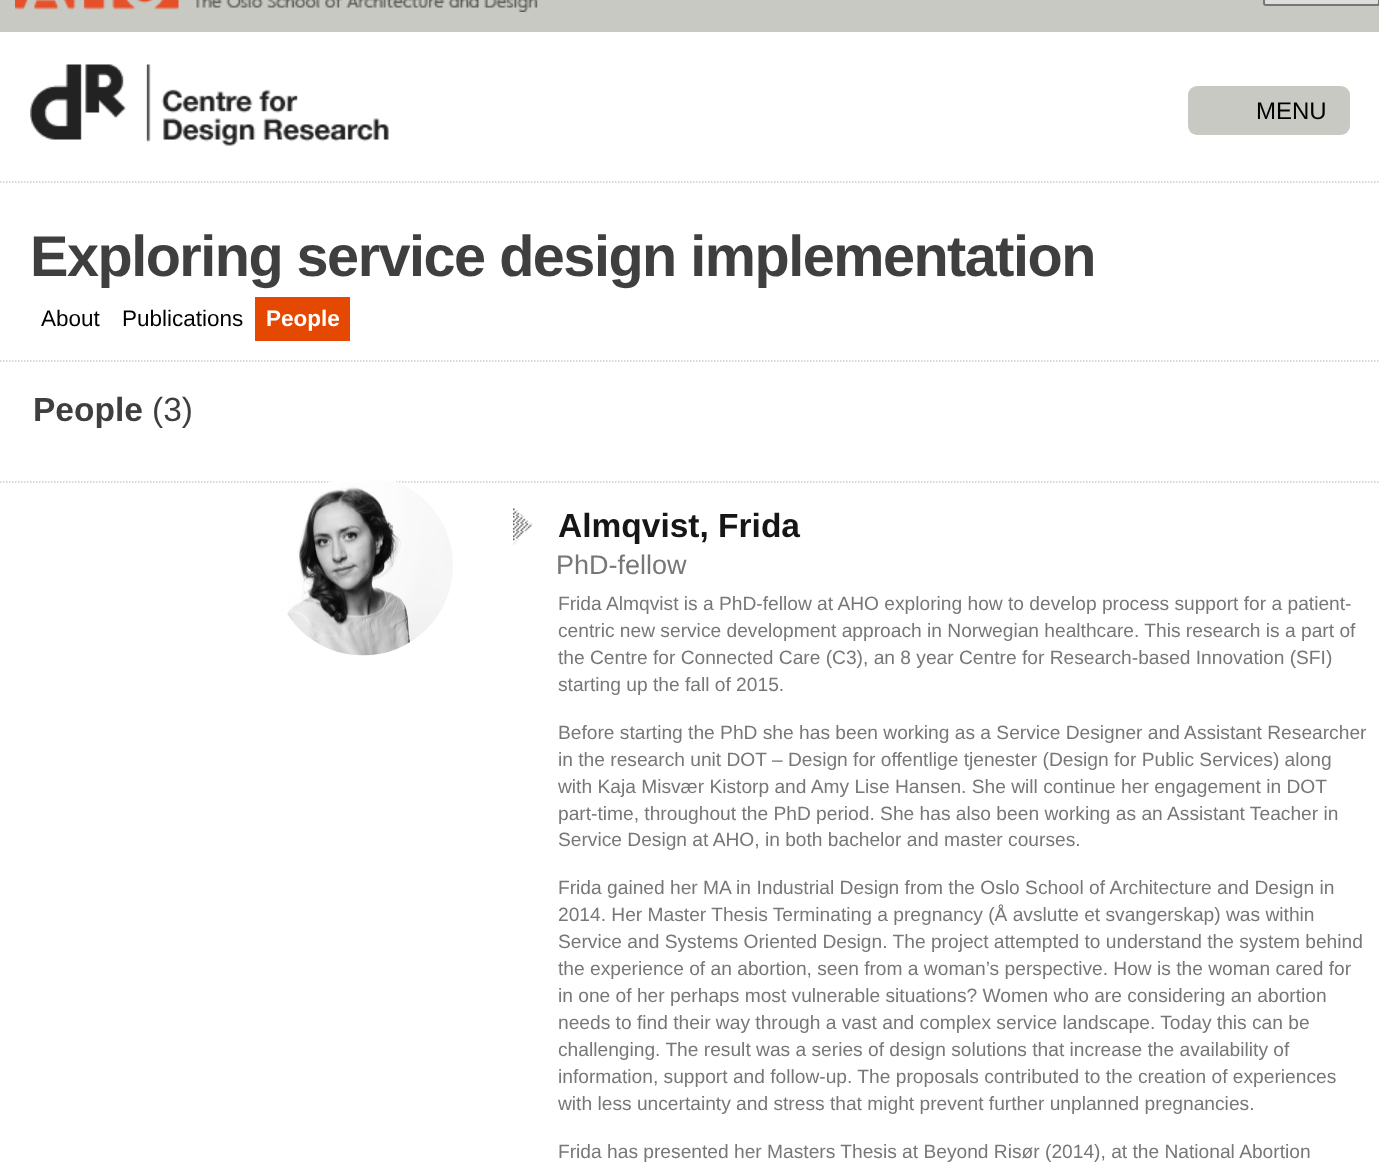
<svg xmlns="http://www.w3.org/2000/svg" xmlns:xlink="http://www.w3.org/1999/xlink" width="1379" height="1163" viewBox="0 0 1379 1163">
<style>
.cls-1{font:24px Liberation Sans;fill:#000000}
.cls-2{font:bold 57.6px Liberation Sans;letter-spacing:-1.5px;fill:#3f3f3f}
.cls-3{font:22.5px Liberation Sans;fill:#000000}
.cls-4{font:bold 22.5px Liberation Sans;fill:#ffffff}
.cls-5{font:bold 33.5px Liberation Sans;fill:#3f3f3f}
.cls-6{font:33.5px Liberation Sans;fill:#3f3f3f}
.cls-7{font:bold 33.5px Liberation Sans;fill:#161616}
.cls-8{font:27px Liberation Sans;fill:#777777}
.cls-9{font:19.2px Liberation Sans;fill:#777777}
</style>
<rect width="100%" height="100%" fill="#ffffff"/>
<rect fill="#c8c9c3" x="0" y="0" width="1379" height="32"/>
<image xlink:href="image0.png" x="15" y="0" width="523" height="12"/>
<rect fill="#dddddd" stroke="#767676" stroke-width="2" x="1264" y="-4" width="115" height="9" rx="2"/>
<image xlink:href="image1.png" x="30" y="64" width="359" height="82"/>
<rect fill="#c8c9c3" x="1188" y="86" width="162" height="49" rx="9"/>
<path fill="none" stroke="#cccccc" stroke-width="1.5" stroke-dasharray="1.5 1.5" d="M0 182H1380"/>
<path fill="none" stroke="#cccccc" stroke-width="1.5" stroke-dasharray="1.5 1.5" d="M0 361H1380"/>
<rect fill="#e54800" x="255" y="297" width="95" height="44"/>
<path fill="none" stroke="#cccccc" stroke-width="1.5" stroke-dasharray="1.5 1.5" d="M0 482H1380"/>
<image xlink:href="image2.png" x="287" y="481" width="166" height="175"/>
<image xlink:href="image3.png" x="513" y="508" width="20" height="37"/>
<text class="cls-1" x="1256" y="119">MENU</text>
<text class="cls-2" x="30" y="276">Exploring service design implementation</text>
<text class="cls-3" x="41" y="326">About</text>
<text class="cls-3" x="122" y="326">Publications</text>
<text class="cls-4" x="266" y="326">People</text>
<text class="cls-5" x="33" y="421">People</text>
<text class="cls-6" x="152" y="421">(3)</text>
<text class="cls-7" x="558" y="537">Almqvist, Frida</text>
<text class="cls-8" x="556" y="574">PhD-fellow</text>
<text class="cls-9"><tspan x="558" y="610">Frida Almqvist is a PhD-fellow at AHO exploring how to develop process support for a patient-</tspan><tspan x="558" y="637">centric new service development approach in Norwegian healthcare. This research is a part of</tspan><tspan x="558" y="664">the Centre for Connected Care (C3), an 8 year Centre for Research-based Innovation (SFI)</tspan><tspan x="558" y="691">starting up the fall of 2015.</tspan></text>
<text class="cls-9"><tspan x="558" y="739">Before starting the PhD she has been working as a Service Designer and Assistant Researcher</tspan><tspan x="558" y="766">in the research unit DOT – Design for offentlige tjenester (Design for Public Services) along</tspan><tspan x="558" y="793">with Kaja Misvær Kistorp and Amy Lise Hansen. She will continue her engagement in DOT</tspan><tspan x="558" y="820">part-time, throughout the PhD period. She has also been working as an Assistant Teacher in</tspan><tspan x="558" y="846">Service Design at AHO, in both bachelor and master courses.</tspan></text>
<text class="cls-9"><tspan x="558" y="894">Frida gained her MA in Industrial Design from the Oslo School of Architecture and Design in</tspan><tspan x="558" y="921">2014. Her Master Thesis Terminating a pregnancy (Å avslutte et svangerskap) was within</tspan><tspan x="558" y="948">Service and Systems Oriented Design. The project attempted to understand the system behind</tspan><tspan x="558" y="975">the experience of an abortion, seen from a woman’s perspective. How is the woman cared for</tspan><tspan x="558" y="1002">in one of her perhaps most vulnerable situations? Women who are considering an abortion</tspan><tspan x="558" y="1029">needs to find their way through a vast and complex service landscape. Today this can be</tspan><tspan x="558" y="1056">challenging. The result was a series of design solutions that increase the availability of</tspan><tspan x="558" y="1083">information, support and follow-up. The proposals contributed to the creation of experiences</tspan><tspan x="558" y="1110">with less uncertainty and stress that might prevent further unplanned pregnancies.</tspan></text>
<text class="cls-9" x="558" y="1158">Frida has presented her Masters Thesis at Beyond Risør (2014), at the National Abortion</text>
</svg>
